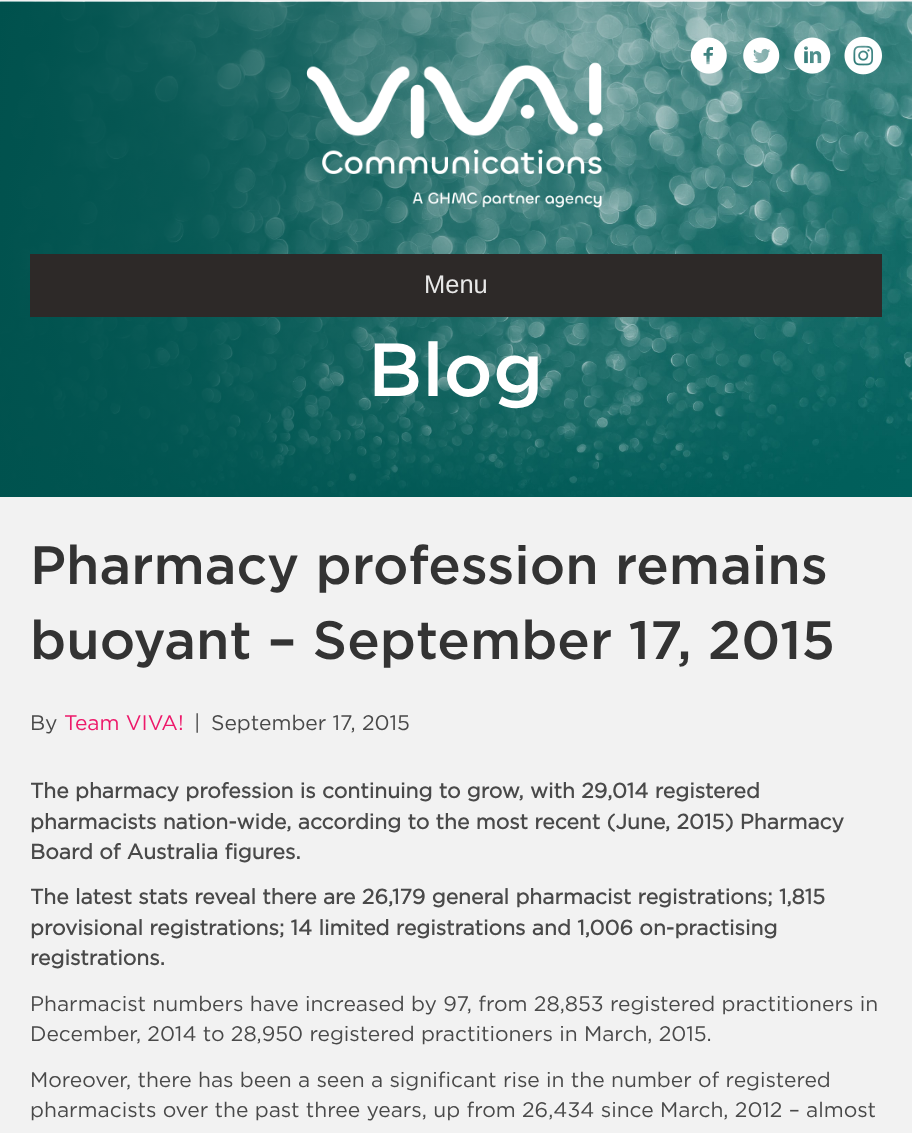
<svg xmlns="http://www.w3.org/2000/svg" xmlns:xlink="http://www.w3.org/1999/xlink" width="912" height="1133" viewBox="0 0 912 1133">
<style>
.cls-1{font:25.5px Liberation Sans;fill:#e8e8e8}
.cls-2{font:500 75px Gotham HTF;fill:#ffffff}
.cls-3{font:500 54px Gotham HTF;fill:#333333}
.cls-4{font:21px Gotham HTF;fill:#494949}
.cls-5{font:21px Gotham HTF;fill:#ed196a}
.cls-6{font:bold 21px Gotham HTF;fill:#494949}
</style>
<defs>
<linearGradient id="g1" gradientUnits="userSpaceOnUse" x1="-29" y1="164" x2="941" y2="334"><stop offset="0" stop-color="#00514d"/><stop offset="1" stop-color="#00514d" stop-opacity="0"/></linearGradient>
</defs>
<rect width="100%" height="100%" fill="#f2f2f2"/>
<rect fill="#00615d" x="0" y="496" width="912" height="1"/>
<image xlink:href="image5.png" x="0" y="1" width="912" height="496"/>
<rect fill="url(#g1)" x="0" y="2" width="912" height="495"/>
<image xlink:href="image0.png" x="690" y="37" width="37" height="37"/>
<image xlink:href="image1.png" x="743" y="37" width="37" height="37"/>
<image xlink:href="image2.png" x="794" y="37" width="37" height="37"/>
<image xlink:href="image3.png" x="844" y="36" width="38" height="39"/>
<image xlink:href="image4.png" x="306" y="62" width="297" height="146"/>
<rect fill="#2d2928" x="30" y="254" width="852" height="63"/>
<text class="cls-1" x="424" y="293">Menu</text>
<text class="cls-2" x="368" y="396">Blog</text>
<text class="cls-3"><tspan x="30" y="584">Pharmacy profession remains</tspan><tspan x="30" y="659">buoyant – September 17, 2015</tspan></text>
<text class="cls-4" x="30" y="730">By</text>
<text class="cls-5" x="64" y="730">Team VIVA!</text>
<text class="cls-4" x="194" y="730">|</text>
<text class="cls-4" x="211" y="730">September 17, 2015</text>
<text class="cls-6"><tspan x="30" y="798">The pharmacy profession is continuing to grow, with 29,014 registered</tspan><tspan x="30" y="829">pharmacists nation-wide, according to the most recent (June, 2015) Pharmacy</tspan><tspan x="30" y="859">Board of Australia figures.</tspan></text>
<text class="cls-6"><tspan x="30" y="904">The latest stats reveal there are 26,179 general pharmacist registrations; 1,815</tspan><tspan x="30" y="935">provisional registrations; 14 limited registrations and 1,006 on-practising</tspan><tspan x="30" y="965">registrations.</tspan></text>
<text class="cls-4"><tspan x="30" y="1011">Pharmacist numbers have increased by 97, from 28,853 registered practitioners in</tspan><tspan x="30" y="1041">December, 2014 to 28,950 registered practitioners in March, 2015.</tspan></text>
<text class="cls-4"><tspan x="30" y="1087">Moreover, there has been a seen a significant rise in the number of registered</tspan><tspan x="30" y="1117">pharmacists over the past three years, up from 26,434 since March, 2012 – almost</tspan></text>
</svg>
